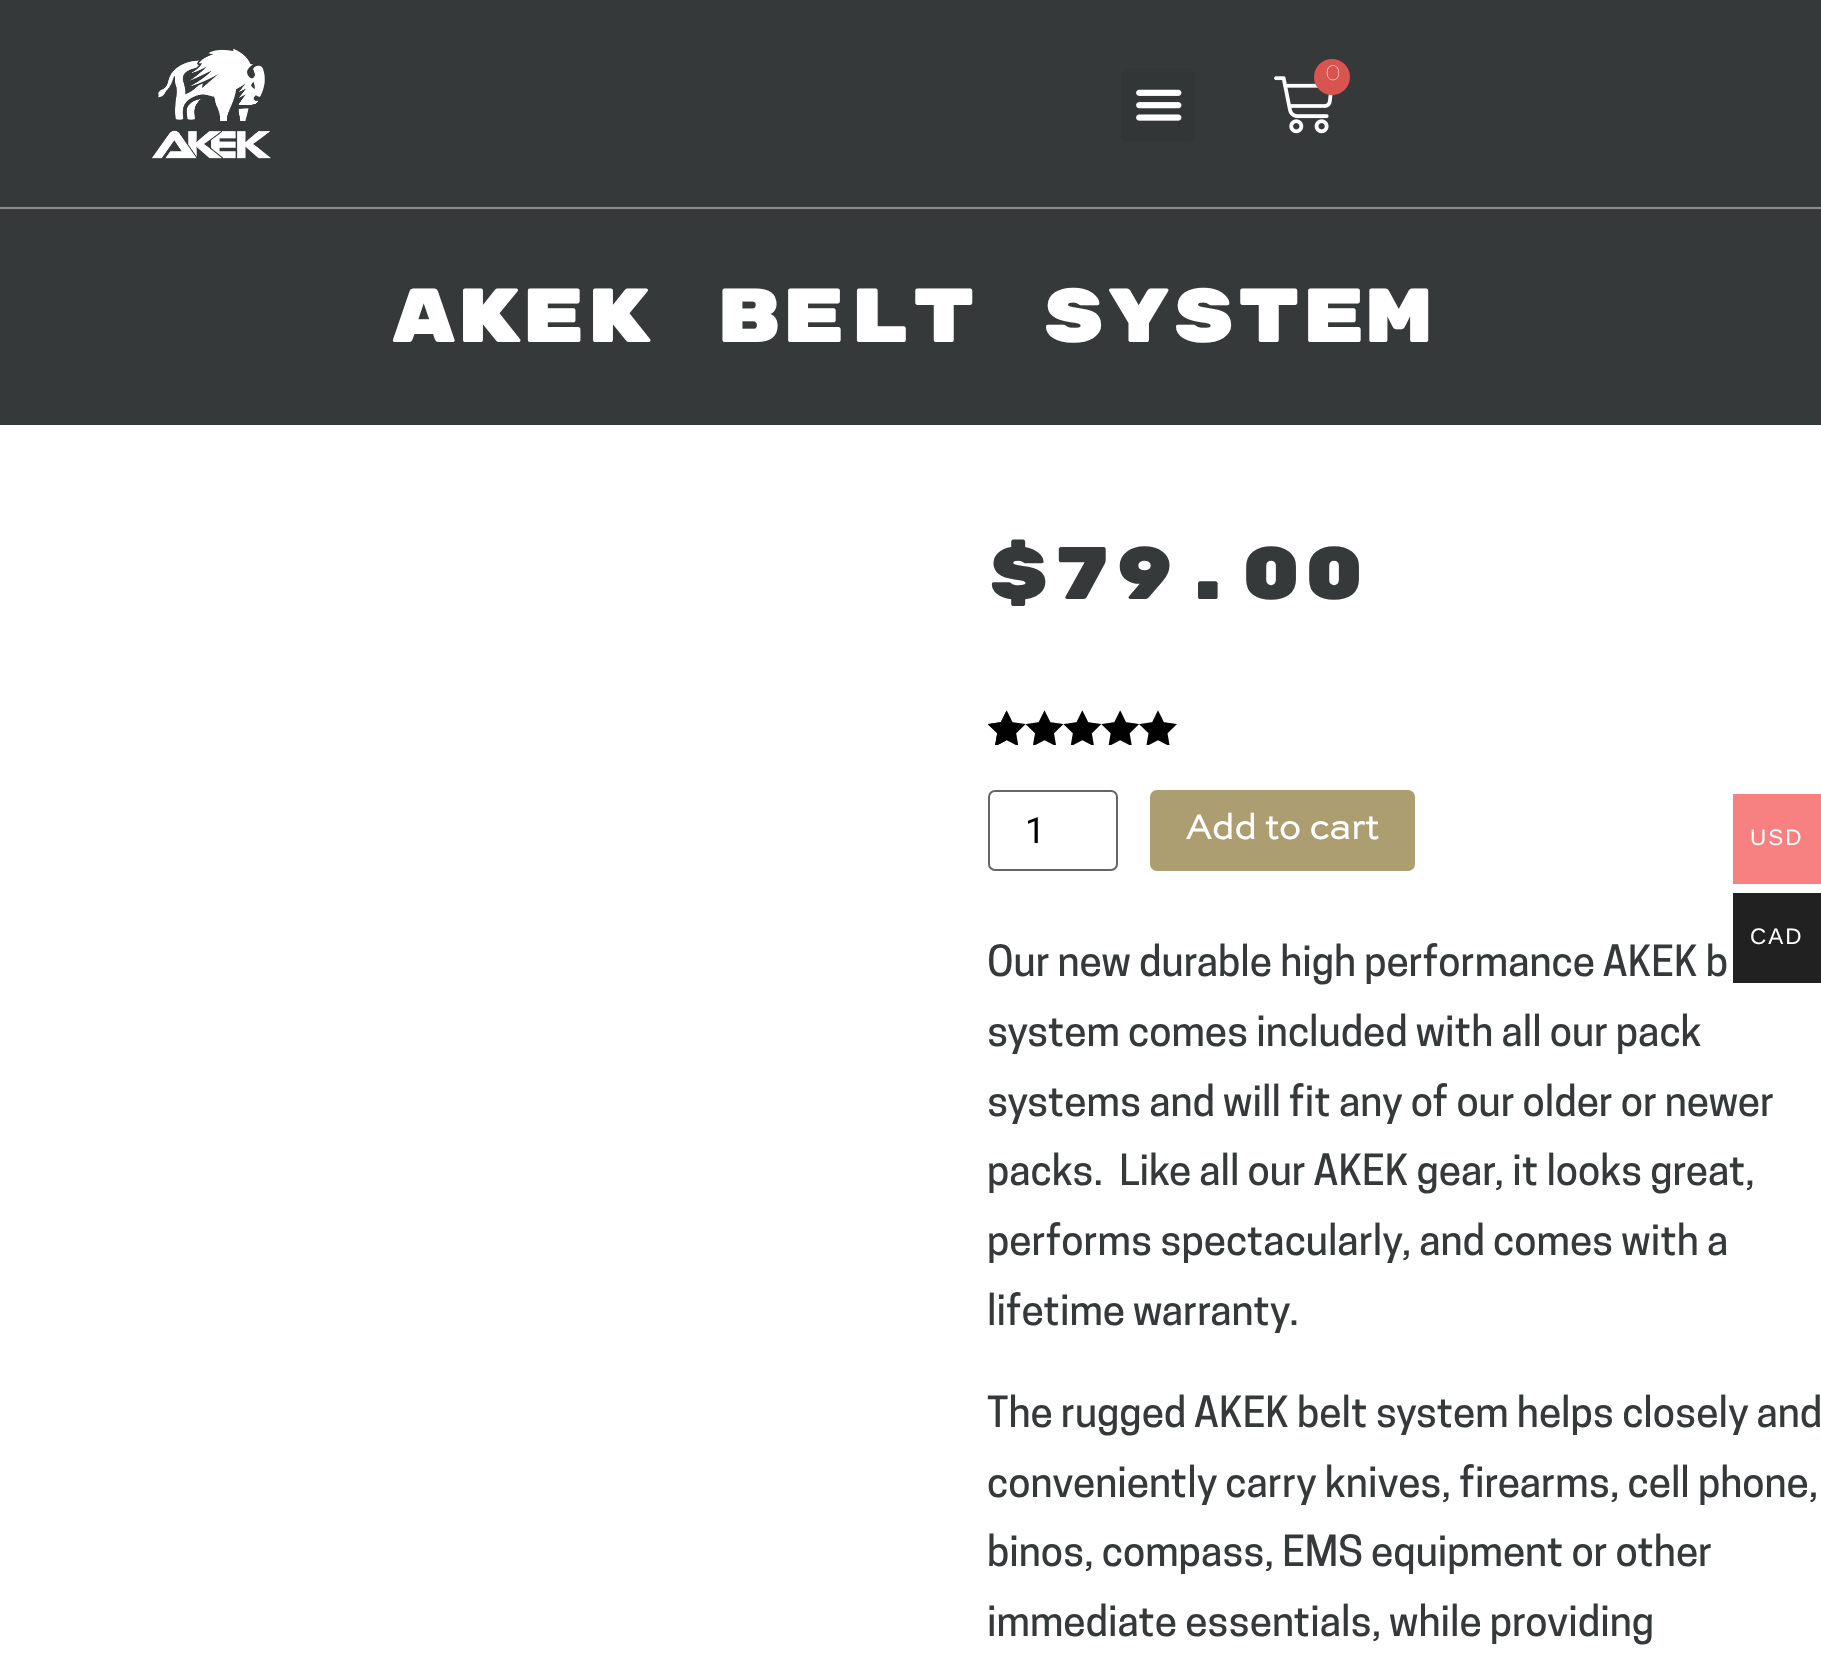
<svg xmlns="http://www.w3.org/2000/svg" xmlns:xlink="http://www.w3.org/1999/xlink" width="1821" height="1653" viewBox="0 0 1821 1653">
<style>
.cls-1{font:100 22.5px Josefin Sans;fill:#ffffff}
.cls-2{font:76.5px Rubik Mono One;fill:#ffffff}
.cls-3{font:74.25px Rubik Mono One;fill:#35393a}
.cls-4{font:36px Roboto;fill:#000000}
.cls-5{font:bold 36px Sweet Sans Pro;fill:#ffffff}
.cls-6{font:500 40.5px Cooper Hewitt;fill:#35393a}
.cls-7{font:22.5px Liberation Sans;letter-spacing:2px;fill:#ffffff}
</style>
<rect width="100%" height="100%" fill="#ffffff"/>
<rect fill="#35393a" x="0" y="0" width="1821" height="207"/>
<rect fill="#8e8d8e" x="0" y="207" width="1821" height="2"/>
<image xlink:href="image0.png" x="152" y="48" width="119" height="111"/>
<rect fill="#323637" x="1121" y="68" width="74" height="74" rx="7"/>
<image xlink:href="image1.png" x="1136" y="89" width="46" height="32"/>
<image xlink:href="image2.png" x="1274" y="76" width="59" height="58"/>
<circle fill="#d9534f" cx="1332" cy="77" r="18"/>
<rect fill="#35393a" x="0" y="209" width="1821" height="216"/>
<image xlink:href="image3.png" x="988" y="710" width="189" height="35"/>
<image xlink:href="image4.png" x="988" y="710" width="189" height="35"/>
<image xlink:href="image5.png" x="988" y="712" width="18" height="33"/>
<rect fill="none" stroke="#666666" stroke-width="2" x="989" y="791" width="128" height="79" rx="6"/>
<rect fill="#ac9e71" x="1150" y="790" width="265" height="81" rx="7"/>
<rect fill="#f78080" x="1733" y="794" width="88" height="90"/>
<rect fill="#212121" x="1733" y="893" width="88" height="90"/>
<text class="cls-1" x="1326" y="80">0</text>
<text class="cls-2" x="391" y="342">AKEK Belt System</text>
<text class="cls-3" x="987" y="599">$79.00</text>
<text class="cls-4" x="1025" y="843">1</text>
<text class="cls-5" x="1185" y="839">Add to cart</text>
<text class="cls-6" xml:space="preserve"><tspan x="987" y="976">Our new durable high performance AKEK b</tspan><tspan x="987" y="1046">system comes included with all our pack</tspan><tspan x="987" y="1116">systems and will fit any of our older or newer</tspan><tspan x="987" y="1185">packs.  Like all our AKEK gear, it looks great,</tspan><tspan x="987" y="1255">performs spectacularly, and comes with a</tspan><tspan x="987" y="1325">lifetime warranty.</tspan></text>
<text class="cls-6"><tspan x="987" y="1427">The rugged AKEK belt system helps closely and</tspan><tspan x="987" y="1497">conveniently carry knives, firearms, cell phone,</tspan><tspan x="987" y="1566">binos, compass, EMS equipment or other</tspan><tspan x="987" y="1636">immediate essentials, while providing</tspan></text>
<text class="cls-7" x="1750" y="845">USD</text>
<text class="cls-7" x="1750" y="944">CAD</text>
</svg>
